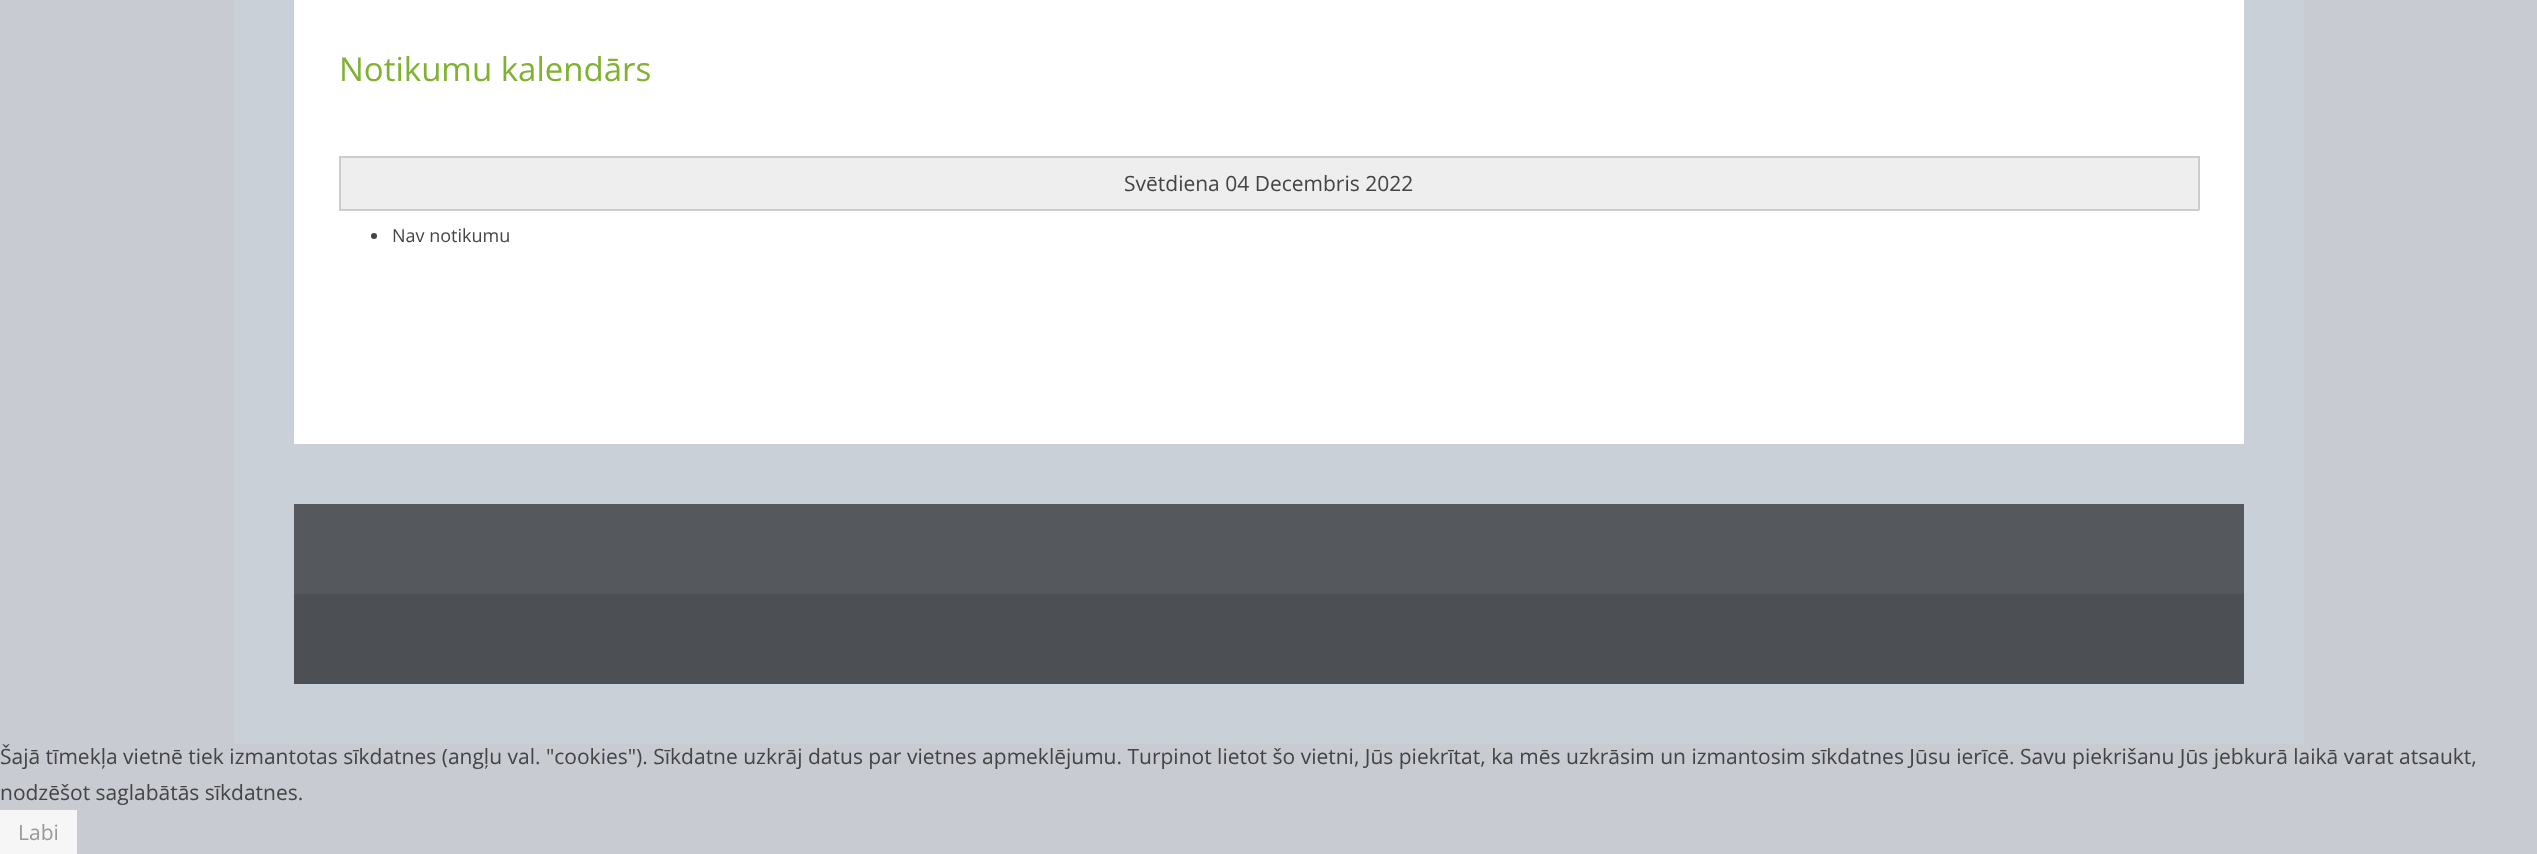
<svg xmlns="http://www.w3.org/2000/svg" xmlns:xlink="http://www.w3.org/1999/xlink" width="2537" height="854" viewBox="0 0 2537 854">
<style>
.cls-1{font:33px Open Sans;fill:#80b232}
.cls-2{font:21px Open Sans;fill:#444444}
.cls-3{font:18px Open Sans;fill:#444444}
.cls-4{font:21px Open Sans;fill:#999999}
</style>
<rect width="100%" height="100%" fill="#c8cbd1"/>
<rect fill="#c9d0d7" x="234" y="0" width="2070" height="744"/>
<rect fill="#ffffff" x="294" y="0" width="1950" height="444"/>
<rect fill="#eeeeee" x="341" y="158" width="1857" height="51"/>
<rect fill="#cccccc" x="339" y="156" width="1860" height="2"/>
<rect fill="#cccccc" x="2198" y="156" width="2" height="54"/>
<rect fill="#cccccc" x="339" y="209" width="1860" height="2"/>
<rect fill="#cccccc" x="339" y="156" width="2" height="54"/>
<circle fill="#444444" cx="374" cy="236" r="3"/>
<rect fill="#55595d" x="294" y="504" width="1950" height="90"/>
<rect fill="#4c5054" x="294" y="594" width="1950" height="90"/>
<rect fill="#f6f6f6" x="0" y="810" width="77" height="44"/>
<text class="cls-1" x="339" y="81">Notikumu kalendārs</text>
<text class="cls-2" x="1124" y="191">Svētdiena 04 Decembris 2022</text>
<text class="cls-3" x="392" y="242">Nav notikumu</text>
<text class="cls-2"><tspan x="0" y="764">Šajā tīmekļa vietnē tiek izmantotas sīkdatnes (angļu val. "cookies"). Sīkdatne uzkrāj datus par vietnes apmeklējumu. Turpinot lietot šo vietni, Jūs piekrītat, ka mēs uzkrāsim un izmantosim sīkdatnes Jūsu ierīcē. Savu piekrišanu Jūs jebkurā laikā varat atsaukt,</tspan><tspan x="0" y="800">nodzēšot saglabātās sīkdatnes.</tspan></text>
<text class="cls-4" x="18" y="840">Labi</text>
</svg>
